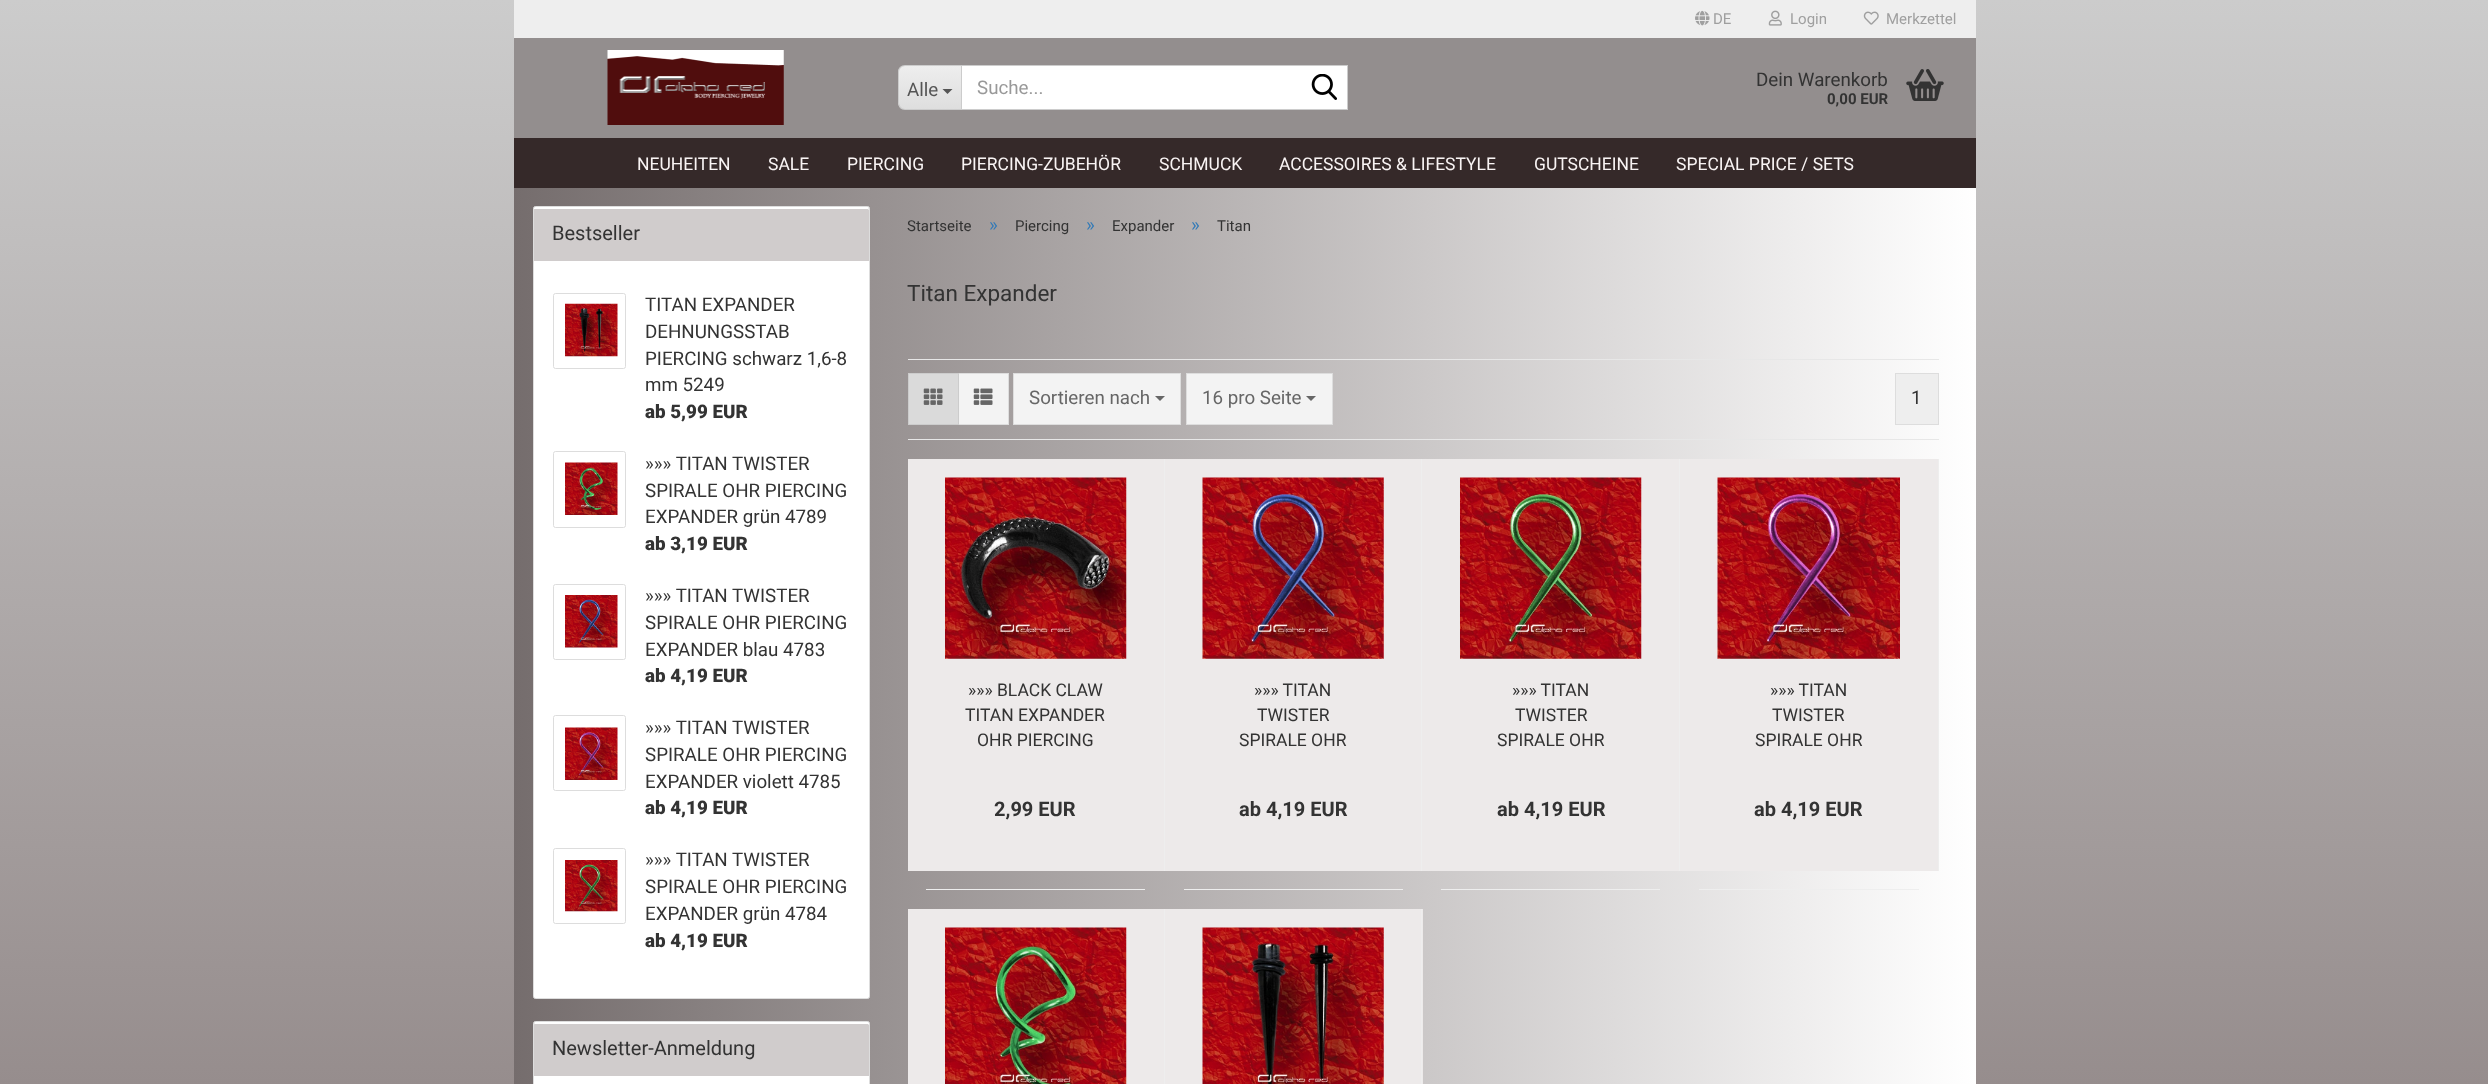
<svg xmlns="http://www.w3.org/2000/svg" xmlns:xlink="http://www.w3.org/1999/xlink" width="2488" height="1084" viewBox="0 0 2488 1084">
<style>
.cls-1{font:15px Roboto;fill:#9f9f9f}
.cls-2{font:18.75px Roboto;fill:#555555}
.cls-3{font:18.75px Roboto;fill:#999999}
.cls-4{font:18.75px Roboto;fill:#333333}
.cls-5{font:bold 15px Roboto;fill:#333333}
.cls-6{font:17.5px Roboto;fill:#f9f4f4}
.cls-7{font:20px Roboto;fill:#333333}
.cls-8{font:900 18.75px Roboto;fill:#333333}
.cls-9{font:15px Roboto;fill:#333333}
.cls-10{font:18.75px Roboto;fill:#337ab7}
.cls-11{font:22.5px Roboto;fill:#333333}
.cls-12{font:18.75px Roboto;fill:#666666}
.cls-13{font:17.5px Roboto;fill:#333333}
.cls-14{font:bold 20px Roboto;fill:#333333}
</style>
<defs>
<linearGradient id="g1" gradientUnits="userSpaceOnUse" x1="1244" y1="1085" x2="1244" y2="0"><stop offset="0" stop-color="#968d8d"/><stop offset="1" stop-color="#cccccc"/></linearGradient>
<linearGradient id="g2" gradientUnits="userSpaceOnUse" x1="514" y1="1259" x2="1976" y2="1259"><stop offset="0" stop-color="#756d6d"/><stop offset="1" stop-color="#ffffff"/></linearGradient>
<clipPath id="clip1"><path d="M906 65H961V110H906C901.5 110 898 106.5 898 102V73C898 68.5 901.5 65 906 65Z"/></clipPath>
<linearGradient id="g3" gradientUnits="userSpaceOnUse" x1="930" y1="66" x2="930" y2="109"><stop offset="0" stop-color="#eeeeee"/><stop offset="1" stop-color="#dedede"/></linearGradient>
</defs>
<rect width="100%" height="100%" fill="#ffffff"/>
<rect fill="url(#g1)" x="0" y="0" width="2488" height="1084"/>
<rect fill="url(#g2)" x="514" y="188" width="1462" height="896"/>
<rect fill="#938e8e" x="514" y="38" width="1462" height="100"/>
<rect fill="#eeeeee" x="514" y="0" width="1462" height="38"/>
<image xlink:href="image0.png" x="1695" y="10" width="15" height="16"/>
<image xlink:href="image1.png" x="1768" y="10" width="14" height="16"/>
<image xlink:href="image2.png" x="1863" y="11" width="16" height="14"/>
<image xlink:href="image3.png" x="607" y="50" width="177" height="75"/>
<g clip-path="url(#clip1)">
<rect fill="url(#g3)" x="898" y="66" width="63" height="43"/>
</g>
<path fill="#cccccc" fill-rule="evenodd" d="M905 65H961V110H905C901 110 898 107 898 102V72C898 68 901 65 905 65ZM905 66H961V109H905C902 109 899 106 899 102V72C899 69 902 66 905 66Z"/>
<path fill="#555555" d="M942.5 89H952.5L947.5 94Z"/>
<rect fill="#ffffff" stroke="#cccccc" x="961.5" y="65.5" width="386" height="44"/>
<image xlink:href="image4.png" x="1311" y="74" width="26" height="26"/>
<image xlink:href="image5.png" x="1906" y="69" width="38" height="32"/>
<rect fill="#352929" x="514" y="138" width="1462" height="50"/>
<rect fill="#ffffff" stroke="#dddddd" x="533.5" y="206.5" width="336" height="792" rx="2"/>
<path fill="#d0cccc" d="M535 208H868C868.5 208 869 208.5 869 209V261H534V209C534 208.5 534.5 208 535 208Z"/>
<path fill="#ffffff" d="M535 209H868L869 210V209L868 208H534V210C534 209 534 209 535 209Z"/>
<rect fill="none" stroke="#dddddd" x="553.5" y="293.5" width="72" height="75" rx="2"/>
<image xlink:href="image6.png" x="565" y="303" width="53" height="54"/>
<rect fill="none" stroke="#dddddd" x="553.5" y="451.5" width="72" height="76" rx="2"/>
<image xlink:href="image7.png" x="565" y="462" width="53" height="53"/>
<rect fill="none" stroke="#dddddd" x="553.5" y="584.5" width="72" height="75" rx="2"/>
<image xlink:href="image8.png" x="565" y="595" width="53" height="53"/>
<rect fill="none" stroke="#dddddd" x="553.5" y="715.5" width="72" height="75" rx="2"/>
<image xlink:href="image9.png" x="565" y="727" width="53" height="53"/>
<rect fill="none" stroke="#dddddd" x="553.5" y="848.5" width="72" height="75" rx="2"/>
<image xlink:href="image10.png" x="565" y="860" width="53" height="52"/>
<rect fill="#ffffff" stroke="#dddddd" x="533.5" y="1021.5" width="336" height="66" rx="2"/>
<path fill="#d0cccc" d="M535 1023H868C868.5 1023 869 1023.5 869 1024V1076H534V1024C534 1023.5 534.5 1023 535 1023Z"/>
<path fill="#ffffff" d="M535 1024H868L869 1025V1023H702H535L534 1024V1025C534 1024 534 1024 535 1024Z"/>
<rect fill="#e7e7e7" x="908" y="359" width="1031" height="1"/>
<rect fill="#e7e7e7" x="908" y="439" width="1031" height="1"/>
<rect fill="#f3f3f3" stroke="#dddddd" x="958.5" y="373.5" width="50" height="51"/>
<rect fill="#dadada" stroke="#cccccc" x="908.5" y="373.5" width="50" height="51"/>
<image xlink:href="image11.png" x="923" y="388" width="20" height="17"/>
<image xlink:href="image12.png" x="973" y="388" width="20" height="17"/>
<rect fill="#f3f3f3" stroke="#dddddd" x="1013.5" y="373.5" width="167" height="51"/>
<path fill="#666666" d="M1155 396H1165L1160 401Z"/>
<rect fill="#f3f3f3" stroke="#dddddd" x="1186.5" y="373.5" width="146" height="51"/>
<path fill="#666666" d="M1306 396H1316L1311 401Z"/>
<rect fill="#eeeeee" stroke="#dddddd" x="1895.5" y="373.5" width="43" height="51"/>
<rect fill="#edeaea" x="908" y="459" width="256" height="412"/>
<rect fill="#eeeeee" x="1164" y="459" width="1" height="412"/>
<rect fill="#eeeeee" x="926" y="889" width="219" height="1"/>
<image xlink:href="image13.png" x="945" y="477" width="182" height="182"/>
<rect fill="#edeaea" x="1165" y="459" width="514" height="412"/>
<rect fill="#eeeeee" x="1421" y="459" width="1" height="412"/>
<rect fill="#eeeeee" x="1184" y="889" width="219" height="1"/>
<image xlink:href="image14.png" x="1202" y="477" width="182" height="182"/>
<rect fill="#eeeeee" x="1679" y="459" width="1" height="412"/>
<rect fill="#eeeeee" x="1441" y="889" width="219" height="1"/>
<image xlink:href="image15.png" x="1460" y="477" width="182" height="182"/>
<rect fill="#edeaea" x="1680" y="459" width="258" height="412"/>
<rect fill="#eeeeee" x="1938" y="459" width="1" height="412"/>
<rect fill="#eeeeee" x="1699" y="889" width="220" height="1"/>
<image xlink:href="image16.png" x="1717" y="477" width="183" height="182"/>
<rect fill="#edeaea" x="908" y="909" width="256" height="175"/>
<rect fill="#eeeeee" x="1164" y="909" width="1" height="175"/>
<image xlink:href="image17.png" x="945" y="927" width="182" height="157"/>
<rect fill="#edeaea" x="1165" y="909" width="258" height="175"/>
<rect fill="#eeeeee" x="1421" y="909" width="1" height="175"/>
<image xlink:href="image18.png" x="1202" y="927" width="182" height="157"/>
<text class="cls-1" x="1713" y="24">DE</text>
<text class="cls-1" x="1790" y="24">Login</text>
<text class="cls-1" x="1886" y="24">Merkzettel</text>
<text class="cls-2" x="907" y="96">Alle</text>
<text class="cls-3" x="977" y="94">Suche...</text>
<text class="cls-4" x="1756" y="86">Dein Warenkorb</text>
<text class="cls-5" x="1827" y="104">0,00 EUR</text>
<text class="cls-6" x="637" y="170">NEUHEITEN</text>
<text class="cls-6" x="768" y="170">SALE</text>
<text class="cls-6" x="847" y="170">PIERCING</text>
<text class="cls-6" x="961" y="170">PIERCING-ZUBEHÖR</text>
<text class="cls-6" x="1159" y="170">SCHMUCK</text>
<text class="cls-6" x="1279" y="170">ACCESSOIRES &amp; LIFESTYLE</text>
<text class="cls-6" x="1534" y="170">GUTSCHEINE</text>
<text class="cls-6" x="1676" y="170">SPECIAL PRICE / SETS</text>
<text class="cls-7" x="552" y="240">Bestseller</text>
<text class="cls-4"><tspan x="645" y="311">TITAN EXPANDER</tspan><tspan x="645" y="338">DEHNUNGSSTAB</tspan><tspan x="645" y="365">PIERCING schwarz 1,6-8</tspan><tspan x="645" y="391">mm 5249</tspan></text>
<text class="cls-8" x="645" y="418">ab 5,99 EUR</text>
<text class="cls-4"><tspan x="645" y="470">»»» TITAN TWISTER</tspan><tspan x="645" y="497">SPIRALE OHR PIERCING</tspan><tspan x="645" y="523">EXPANDER grün 4789</tspan></text>
<text class="cls-8" x="645" y="550">ab 3,19 EUR</text>
<text class="cls-4"><tspan x="645" y="602">»»» TITAN TWISTER</tspan><tspan x="645" y="629">SPIRALE OHR PIERCING</tspan><tspan x="645" y="656">EXPANDER blau 4783</tspan></text>
<text class="cls-8" x="645" y="682">ab 4,19 EUR</text>
<text class="cls-4"><tspan x="645" y="734">»»» TITAN TWISTER</tspan><tspan x="645" y="761">SPIRALE OHR PIERCING</tspan><tspan x="645" y="788">EXPANDER violett 4785</tspan></text>
<text class="cls-8" x="645" y="814">ab 4,19 EUR</text>
<text class="cls-4"><tspan x="645" y="866">»»» TITAN TWISTER</tspan><tspan x="645" y="893">SPIRALE OHR PIERCING</tspan><tspan x="645" y="920">EXPANDER grün 4784</tspan></text>
<text class="cls-8" x="645" y="947">ab 4,19 EUR</text>
<text class="cls-7" x="552" y="1055">Newsletter-Anmeldung</text>
<text class="cls-9" x="907" y="231">Startseite</text>
<text class="cls-10" x="989" y="231">»</text>
<text class="cls-9" x="1015" y="231">Piercing</text>
<text class="cls-10" x="1086" y="231">»</text>
<text class="cls-9" x="1112" y="231">Expander</text>
<text class="cls-10" x="1191" y="231">»</text>
<text class="cls-9" x="1217" y="231">Titan</text>
<text class="cls-11" x="907" y="301">Titan Expander</text>
<text class="cls-12" x="1029" y="404">Sortieren nach</text>
<text class="cls-12" x="1202" y="404">16 pro Seite</text>
<text class="cls-4" x="1911" y="404">1</text>
<text class="cls-13" x="968" y="696">»»» BLACK CLAW</text>
<text class="cls-13" x="965" y="721">TITAN EXPANDER</text>
<text class="cls-13" x="977" y="746">OHR PIERCING</text>
<text class="cls-14" x="994" y="816">2,99 EUR</text>
<text class="cls-13" x="1254" y="696">»»» TITAN</text>
<text class="cls-13" x="1257" y="721">TWISTER</text>
<text class="cls-13" x="1239" y="746">SPIRALE OHR</text>
<text class="cls-14" x="1239" y="816">ab 4,19 EUR</text>
<text class="cls-13" x="1512" y="696">»»» TITAN</text>
<text class="cls-13" x="1515" y="721">TWISTER</text>
<text class="cls-13" x="1497" y="746">SPIRALE OHR</text>
<text class="cls-14" x="1497" y="816">ab 4,19 EUR</text>
<text class="cls-13" x="1770" y="696">»»» TITAN</text>
<text class="cls-13" x="1772" y="721">TWISTER</text>
<text class="cls-13" x="1755" y="746">SPIRALE OHR</text>
<text class="cls-14" x="1754" y="816">ab 4,19 EUR</text>
</svg>
